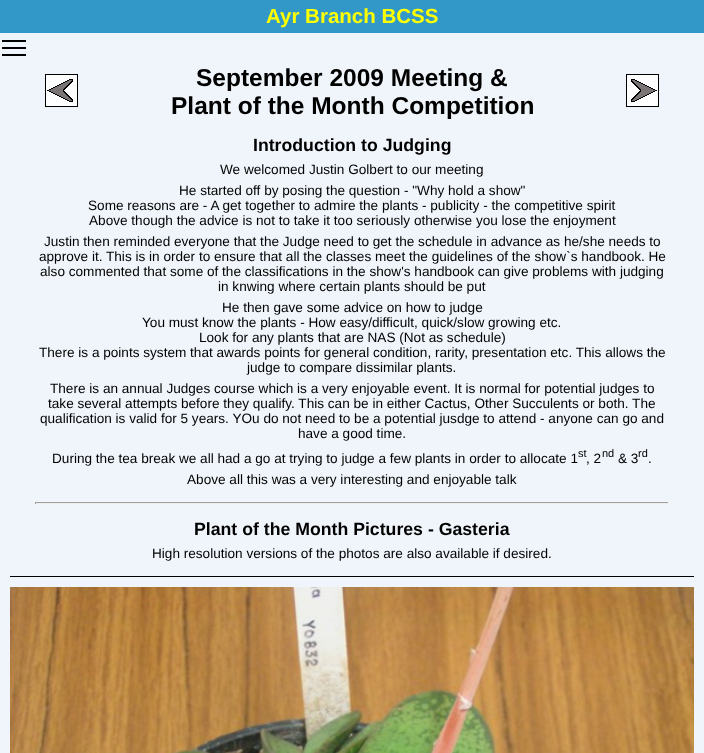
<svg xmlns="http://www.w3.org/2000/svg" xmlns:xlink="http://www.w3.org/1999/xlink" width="704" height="753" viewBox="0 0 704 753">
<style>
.cls-1{font:bold 20.5px Liberation Sans;fill:#ffff00}
.cls-2{font:bold 24.5px Liberation Sans;fill:#000000}
.cls-3{font:bold 17.7px Liberation Sans;fill:#000000}
.cls-4{font:13.6px Liberation Sans;fill:#000000}
.cls-5{font:11px Liberation Sans;fill:#000000}
</style>
<rect width="100%" height="100%" fill="#f0f5fb"/>
<rect fill="#3298c8" x="0" y="0" width="704" height="33"/>
<rect fill="#000000" x="2" y="47" width="24" height="2"/>
<rect fill="#000000" x="2" y="40" width="24" height="2"/>
<rect fill="#000000" x="2" y="54" width="24" height="2"/>
<rect fill="#9f9f9f" x="35" y="502" width="634" height="1"/>
<rect fill="#eeeeee" x="668" y="502" width="1" height="2"/>
<rect fill="#eeeeee" x="35" y="503" width="634" height="1"/>
<rect fill="#9f9f9f" x="35" y="502" width="1" height="2"/>
<rect fill="none" stroke="#000000" x="45.5" y="74.5" width="32" height="32"/>
<image xlink:href="image0.png" x="46" y="75" width="31" height="31"/>
<rect fill="none" stroke="#000000" x="626.5" y="74.5" width="32" height="32"/>
<image xlink:href="image1.png" x="627" y="75" width="31" height="31"/>
<rect fill="#000000" x="10" y="576" width="684" height="1"/>
<image xlink:href="image2.png" x="10" y="587" width="684" height="166"/>
<text class="cls-1" x="266" y="23">Ayr Branch BCSS</text>
<text class="cls-2" x="196" y="86">September 2009 Meeting &amp;</text>
<text class="cls-2" x="171" y="114">Plant of the Month Competition</text>
<text class="cls-3" x="253" y="151">Introduction to Judging</text>
<text class="cls-4" x="220" y="174">We welcomed Justin Golbert to our meeting</text>
<text class="cls-4" x="179" y="195">He started off by posing the question - "Why hold a show"</text>
<text class="cls-4" x="88" y="210">Some reasons are - A get together to admire the plants - publicity - the competitive spirit</text>
<text class="cls-4" x="89" y="225">Above though the advice is not to take it too seriously otherwise you lose the enjoyment</text>
<text class="cls-4" x="44" y="246">Justin then reminded everyone that the Judge need to get the schedule in advance as he/she needs to</text>
<text class="cls-4" x="39" y="261">approve it. This is in order to ensure that all the classes meet the guidelines of the show`s handbook. He</text>
<text class="cls-4" x="40" y="276">also commented that some of the classifications in the show's handbook can give problems with judging</text>
<text class="cls-4" x="218" y="291">in knwing where certain plants should be put</text>
<text class="cls-4" x="222" y="312">He then gave some advice on how to judge</text>
<text class="cls-4" x="142" y="327">You must know the plants - How easy/difficult, quick/slow growing etc.</text>
<text class="cls-4" x="199" y="342">Look for any plants that are NAS (Not as schedule)</text>
<text class="cls-4" x="39" y="357">There is a points system that awards points for general condition, rarity, presentation etc. This allows the</text>
<text class="cls-4" x="247" y="372">judge to compare dissimilar plants.</text>
<text class="cls-4" x="50" y="393">There is an annual Judges course which is a very enjoyable event. It is normal for potential judges to</text>
<text class="cls-4" x="48" y="408">take several attempts before they qualify. This can be in either Cactus, Other Succulents or both. The</text>
<text class="cls-4" x="40" y="423">qualification is valid for 5 years. YOu do not need to be a potential jusdge to attend - anyone can go and</text>
<text class="cls-4" x="298" y="438">have a good time.</text>
<text class="cls-4" x="52" y="463">During the tea break we all had a go at trying to judge a few plants in order to allocate 1</text>
<text class="cls-5" x="578" y="457">st</text>
<text class="cls-4" x="586" y="463">, 2</text>
<text class="cls-5" x="602" y="457">nd</text>
<text class="cls-4" x="618" y="463">&amp; 3</text>
<text class="cls-5" x="638" y="457">rd</text>
<text class="cls-4" x="648" y="463">.</text>
<text class="cls-4" x="187" y="484">Above all this was a very interesting and enjoyable talk</text>
<text class="cls-3" x="194" y="535">Plant of the Month Pictures - Gasteria</text>
<text class="cls-4" x="152" y="558">High resolution versions of the photos are also available if desired.</text>
</svg>
